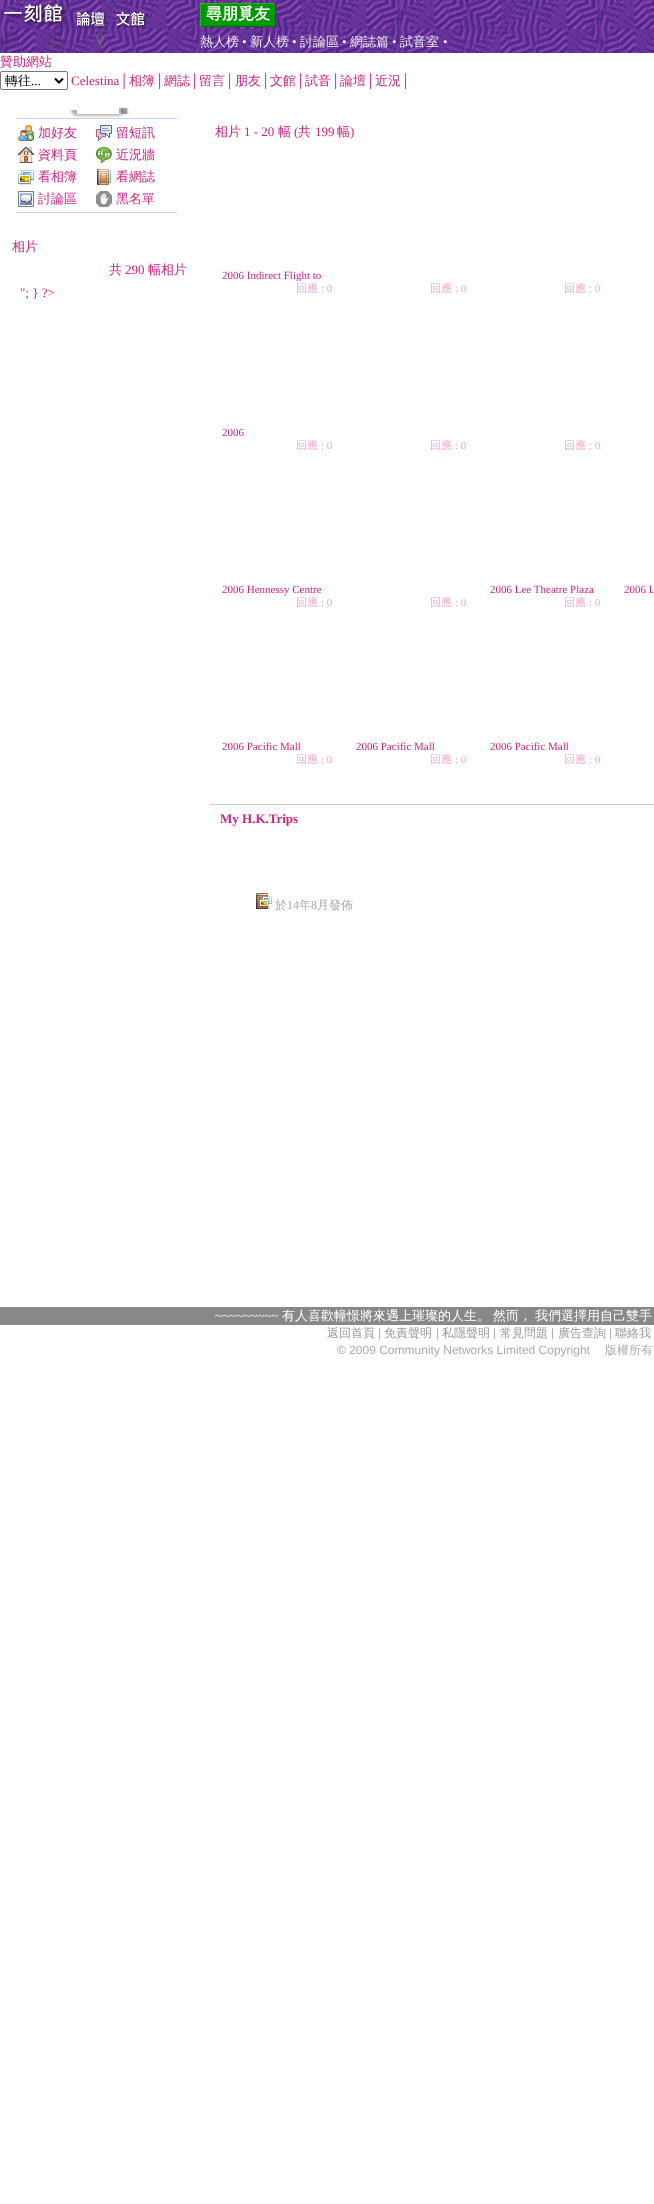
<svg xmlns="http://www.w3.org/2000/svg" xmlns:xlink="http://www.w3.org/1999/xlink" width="654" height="2204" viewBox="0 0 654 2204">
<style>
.cls-1{font:bold 16px WenQuanYi Zen Hei;fill:#ffffff}
.cls-2{font:500 13px WenQuanYi Zen Hei;fill:#eeeeee}
.cls-3{font:13px Liberation Serif;fill:#ffffff}
.cls-4{font:500 13px WenQuanYi Zen Hei;fill:#cc2584}
.cls-5{font:500 13px WenQuanYi Zen Hei;fill:#000000}
.cls-6{font:13px Liberation Serif;fill:#000000}
.cls-7{font:13px Liberation Serif;fill:#cc2584}
.cls-8{font:11px Liberation Serif;fill:#cc2584}
.cls-9{font:500 11px WenQuanYi Zen Hei;fill:#eba8ce}
.cls-10{font:11px Liberation Serif;fill:#eba8ce}
.cls-11{font:bold 13px Liberation Serif;fill:#cc2584}
.cls-12{font:500 12px WenQuanYi Zen Hei;fill:#aaaaaa}
.cls-13{font:12px Liberation Serif;fill:#aaaaaa}
.cls-14{font:500 13px WenQuanYi Zen Hei;fill:#ffffff}
.cls-15{font:500 12px WenQuanYi Zen Hei;fill:#999999}
.cls-16{font:12px Liberation Sans;fill:#aaaaaa}
</style>
<defs>
<clipPath id="clip1"><rect x="222" y="269" width="120" height="12"/></clipPath>
</defs>
<rect width="100%" height="100%" fill="#ffffff"/>
<image xlink:href="image0.png" x="0" y="0" width="654" height="53"/>
<image xlink:href="image1.png" x="4" y="4" width="62" height="23"/>
<image xlink:href="image2.png" x="76" y="11" width="31" height="18"/>
<image xlink:href="image3.png" x="116" y="11" width="31" height="17"/>
<rect fill="#009900" x="201" y="4" width="74" height="22"/>
<rect fill="#33aa33" x="200" y="3" width="76" height="1"/>
<rect fill="#006600" x="275" y="3" width="1" height="24"/>
<rect fill="#006600" x="200" y="26" width="76" height="1"/>
<rect fill="#33aa33" x="200" y="3" width="1" height="24"/>
<image xlink:href="image4.png" x="2" y="33" width="16" height="16"/>
<image xlink:href="image5.png" x="47" y="33" width="16" height="16"/>
<image xlink:href="image6.png" x="95" y="33" width="10" height="16"/>
<rect fill="none" stroke="#767676" x="0.5" y="71.5" width="67" height="18" rx="1.5"/>
<path fill="none" stroke="#000000" stroke-width="2" d="M55 78.5L59 82.5L63 78.5"/>
<image xlink:href="image7.png" x="69" y="106" width="60" height="12"/>
<rect fill="#ccccff" x="17" y="118" width="160" height="1"/>
<image xlink:href="image8.png" x="18" y="125" width="16" height="16"/>
<image xlink:href="image9.png" x="18" y="147" width="16" height="16"/>
<image xlink:href="image10.png" x="18" y="170" width="16" height="15"/>
<image xlink:href="image11.png" x="18" y="191" width="16" height="16"/>
<image xlink:href="image12.png" x="96" y="125" width="16" height="16"/>
<image xlink:href="image13.png" x="96" y="147" width="16" height="16"/>
<image xlink:href="image14.png" x="97" y="169" width="14" height="16"/>
<image xlink:href="image15.png" x="96" y="191" width="16" height="16"/>
<rect fill="#ccccff" x="17" y="212" width="160" height="1"/>
<rect fill="#cccccc" x="210" y="804" width="444" height="1"/>
<image xlink:href="image16.png" x="256" y="893" width="16" height="16"/>
<rect fill="#888888" x="0" y="1307" width="654" height="18"/>
<text class="cls-1" x="206" y="19">尋朋覓友</text>
<text class="cls-2" x="200" y="46">熱人榜</text>
<text class="cls-3" x="242" y="46">•</text>
<text class="cls-2" x="250" y="46">新人榜</text>
<text class="cls-3" x="292" y="46">•</text>
<text class="cls-2" x="300" y="46">討論區</text>
<text class="cls-3" x="342" y="46">•</text>
<text class="cls-2" x="350" y="46">網誌篇</text>
<text class="cls-3" x="392" y="46">•</text>
<text class="cls-2" x="400" y="46">試音室</text>
<text class="cls-3" x="443" y="46">•</text>
<text class="cls-4" x="0" y="66">贊助網站</text>
<text class="cls-5" x="5" y="85">轉往</text>
<text class="cls-6" x="31" y="85">...</text>
<text class="cls-7" x="71" y="85">Celestina│</text>
<text class="cls-4" x="129" y="85">相簿</text>
<text class="cls-7" x="155" y="85">│</text>
<text class="cls-4" x="164" y="85">網誌</text>
<text class="cls-7" x="190" y="85">│</text>
<text class="cls-4" x="199" y="85">留言</text>
<text class="cls-7" x="225" y="85">│</text>
<text class="cls-4" x="235" y="85">朋友</text>
<text class="cls-7" x="261" y="85">│</text>
<text class="cls-4" x="270" y="85">文館</text>
<text class="cls-7" x="296" y="85">│</text>
<text class="cls-4" x="305" y="85">試音</text>
<text class="cls-7" x="331" y="85">│</text>
<text class="cls-4" x="340" y="85">論壇</text>
<text class="cls-7" x="366" y="85">│</text>
<text class="cls-4" x="375" y="85">近況</text>
<text class="cls-7" x="401" y="85">│</text>
<text class="cls-4"><tspan x="38" y="137">加好友</tspan><tspan x="38" y="159">資料頁</tspan><tspan x="38" y="181">看相簿</tspan><tspan x="38" y="203">討論區</tspan></text>
<text class="cls-4"><tspan x="116" y="137">留短訊</tspan><tspan x="116" y="159">近況牆</tspan><tspan x="116" y="181">看網誌</tspan><tspan x="116" y="203">黑名單</tspan></text>
<text class="cls-4" x="12" y="251">相片</text>
<text class="cls-4" x="109" y="274">共</text>
<text class="cls-7" x="125" y="274">290</text>
<text class="cls-4" x="148" y="274">幅相片</text>
<text class="cls-7" x="20" y="297">"; } ?&gt;</text>
<text class="cls-4" x="215" y="136">相片</text>
<text class="cls-7" x="244" y="136">1 - 20</text>
<text class="cls-4" x="278" y="136">幅</text>
<text class="cls-7" x="294" y="136">(</text>
<text class="cls-4" x="298" y="136">共</text>
<text class="cls-7" x="315" y="136">199</text>
<text class="cls-4" x="337" y="136">幅</text>
<text class="cls-7" x="350" y="136">)</text>
<g clip-path="url(#clip1)">
<text class="cls-8" x="222" y="279">2006 Indirect Flight to</text>
</g>
<text class="cls-9" x="296" y="292">回應</text>
<text class="cls-10" x="321" y="292">: 0</text>
<text class="cls-9" x="430" y="292">回應</text>
<text class="cls-10" x="455" y="292">: 0</text>
<text class="cls-9" x="564" y="292">回應</text>
<text class="cls-10" x="589" y="292">: 0</text>
<text class="cls-8" x="222" y="436">2006</text>
<text class="cls-9" x="296" y="449">回應</text>
<text class="cls-10" x="321" y="449">: 0</text>
<text class="cls-9" x="430" y="449">回應</text>
<text class="cls-10" x="455" y="449">: 0</text>
<text class="cls-9" x="564" y="449">回應</text>
<text class="cls-10" x="589" y="449">: 0</text>
<text class="cls-8" x="222" y="593">2006 Hennessy Centre</text>
<text class="cls-9" x="296" y="606">回應</text>
<text class="cls-10" x="321" y="606">: 0</text>
<text class="cls-8" x="490" y="593">2006 Lee Theatre Plaza</text>
<text class="cls-9" x="564" y="606">回應</text>
<text class="cls-10" x="589" y="606">: 0</text>
<text class="cls-8" x="624" y="593">2006 L</text>
<text class="cls-9" x="430" y="606">回應</text>
<text class="cls-10" x="455" y="606">: 0</text>
<text class="cls-8" x="222" y="750">2006 Pacific Mall</text>
<text class="cls-9" x="296" y="763">回應</text>
<text class="cls-10" x="321" y="763">: 0</text>
<text class="cls-8" x="356" y="750">2006 Pacific Mall</text>
<text class="cls-9" x="430" y="763">回應</text>
<text class="cls-10" x="455" y="763">: 0</text>
<text class="cls-8" x="490" y="750">2006 Pacific Mall</text>
<text class="cls-9" x="564" y="763">回應</text>
<text class="cls-10" x="589" y="763">: 0</text>
<text class="cls-11" x="220" y="823">My H.K.Trips</text>
<text class="cls-12" x="275" y="909">於</text>
<text class="cls-13" x="287" y="909">14</text>
<text class="cls-12" x="299" y="909">年</text>
<text class="cls-13" x="311" y="909">8</text>
<text class="cls-12" x="317" y="909">月發佈</text>
<text class="cls-3" x="215" y="1320">~~~~~~~~~</text>
<text class="cls-14" x="282" y="1320">有人喜歡幢憬將來遇上璀璨的人生。</text>
<text class="cls-14" x="493" y="1320">然而，</text>
<text class="cls-14" x="535" y="1320">我們選擇用自己雙手</text>
<text class="cls-15" x="327" y="1337">返回首頁</text>
<text class="cls-16" x="378" y="1337">|</text>
<text class="cls-15" x="384" y="1337">免責聲明</text>
<text class="cls-16" x="436" y="1337">|</text>
<text class="cls-15" x="442" y="1337">私隱聲明</text>
<text class="cls-16" x="493" y="1337">|</text>
<text class="cls-15" x="500" y="1337">常見問題</text>
<text class="cls-16" x="551" y="1337">|</text>
<text class="cls-15" x="558" y="1337">廣告查詢</text>
<text class="cls-16" x="609" y="1337">|</text>
<text class="cls-15" x="615" y="1337">聯絡我</text>
<text class="cls-16" x="337" y="1354">© 2009 Community Networks Limited Copyright</text>
<text class="cls-12" x="605" y="1354">版權所有</text>
</svg>
